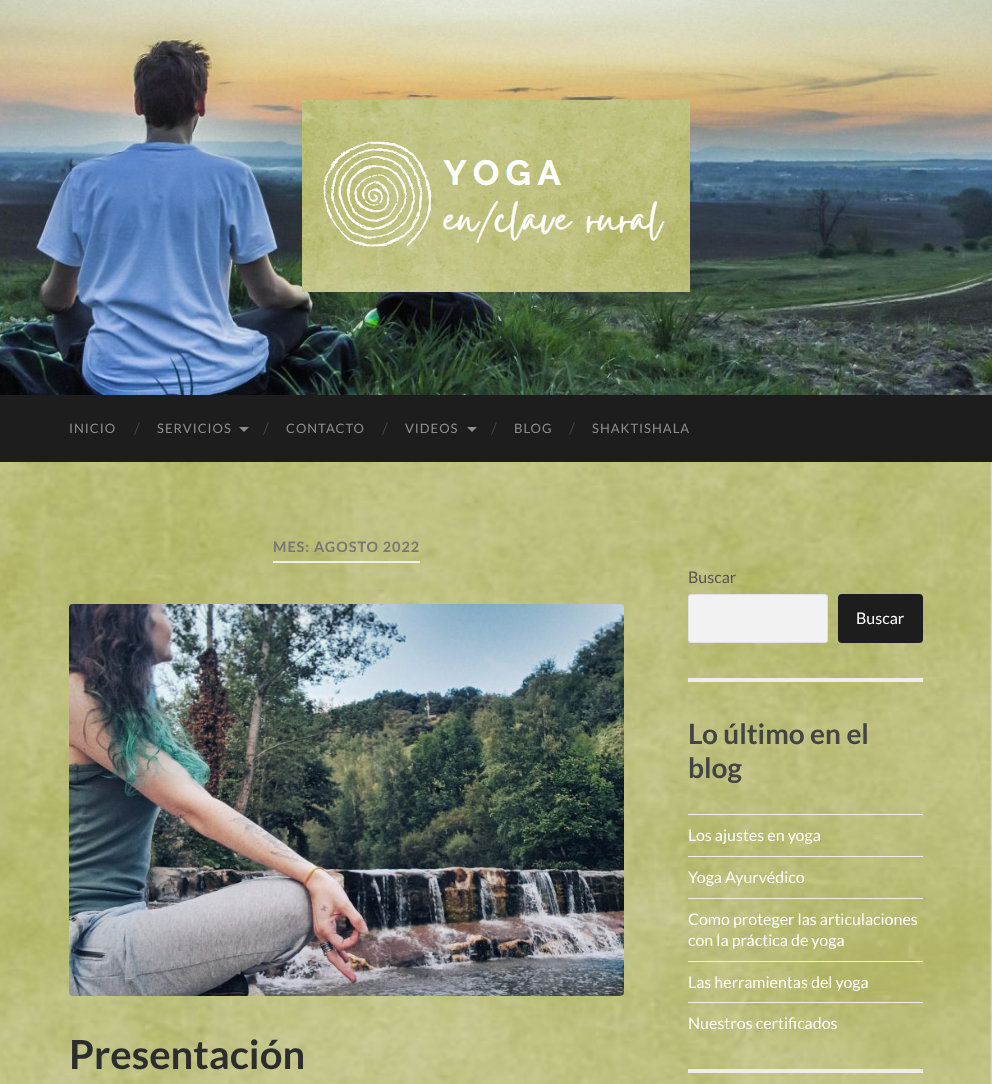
<svg xmlns="http://www.w3.org/2000/svg" xmlns:xlink="http://www.w3.org/1999/xlink" width="992" height="1084" viewBox="0 0 992 1084">
<style>
.cls-1{font:13px Lato;letter-spacing:1px;fill:#8e8e8e}
.cls-2{font:16px Lato;fill:#444444}
.cls-3{font:bold 14.4px Lato;letter-spacing:1px;fill:#767676}
.cls-4{font:bold 40px Lato;fill:#2d2d2d}
.cls-5{font:16px Lato;fill:#555555}
.cls-6{font:16px Lato;fill:#ffffff}
.cls-7{font:bold 28px Lato;fill:#444444}
</style>
<rect width="100%" height="100%" fill="#ffffff"/>
<image xlink:href="image0.png" x="0" y="462" width="992" height="622"/>
<image xlink:href="image1.png" x="0" y="0" width="992" height="395"/>
<image xlink:href="image2.png" x="302" y="100" width="388" height="192"/>
<rect fill="#1d1d1d" x="0" y="395" width="992" height="67"/>
<path fill="#8e8e8e" d="M239 427H249L244 432Z"/>
<path fill="#8e8e8e" d="M467 427H477L472 432Z"/>
<rect fill="#eeeeee" x="273" y="561" width="147" height="2"/>
<image xlink:href="image3.png" x="69" y="604" width="555" height="392"/>
<rect fill="#eeeeee" x="688" y="678" width="235" height="4"/>
<rect fill="#f2f2f2" stroke="#e1e1e3" x="688.5" y="594.5" width="139" height="48" rx="2.5"/>
<rect fill="#1d1d1d" x="838" y="594" width="85" height="49" rx="4"/>
<rect fill="#eeeeee" x="688" y="1069" width="235" height="4"/>
<rect fill="#eeeeee" x="688" y="814" width="235" height="1"/>
<rect fill="#eeeeee" x="688" y="856" width="235" height="1"/>
<rect fill="#eeeeee" x="688" y="898" width="235" height="1"/>
<rect fill="#eeeeee" x="688" y="961" width="235" height="1"/>
<rect fill="#eeeeee" x="688" y="1002" width="235" height="1"/>
<text class="cls-1" x="69" y="433">INICIO</text>
<text class="cls-2" x="134" y="434">/</text>
<text class="cls-1" x="157" y="433">SERVICIOS</text>
<text class="cls-2" x="263" y="434">/</text>
<text class="cls-1" x="286" y="433">CONTACTO</text>
<text class="cls-2" x="382" y="434">/</text>
<text class="cls-1" x="405" y="433">VIDEOS</text>
<text class="cls-2" x="491" y="434">/</text>
<text class="cls-1" x="514" y="433">BLOG</text>
<text class="cls-2" x="569" y="434">/</text>
<text class="cls-1" x="592" y="433">SHAKTISHALA</text>
<text class="cls-3" x="273" y="552">MES: AGOSTO 2022</text>
<text class="cls-4" x="69" y="1069">Presentación</text>
<text class="cls-5" x="688" y="583">Buscar</text>
<text class="cls-6" x="856" y="624">Buscar</text>
<text class="cls-7"><tspan x="688" y="744">Lo último en el</tspan><tspan x="688" y="778">blog</tspan></text>
<text class="cls-6" x="688" y="841">Los ajustes en yoga</text>
<text class="cls-6" x="688" y="883">Yoga Ayurvédico</text>
<text class="cls-6"><tspan x="688" y="925">Como proteger las articulaciones</tspan><tspan x="688" y="946">con la práctica de yoga</tspan></text>
<text class="cls-6" x="688" y="988">Las herramientas del yoga</text>
<text class="cls-6" x="688" y="1029">Nuestros certificados</text>
</svg>
